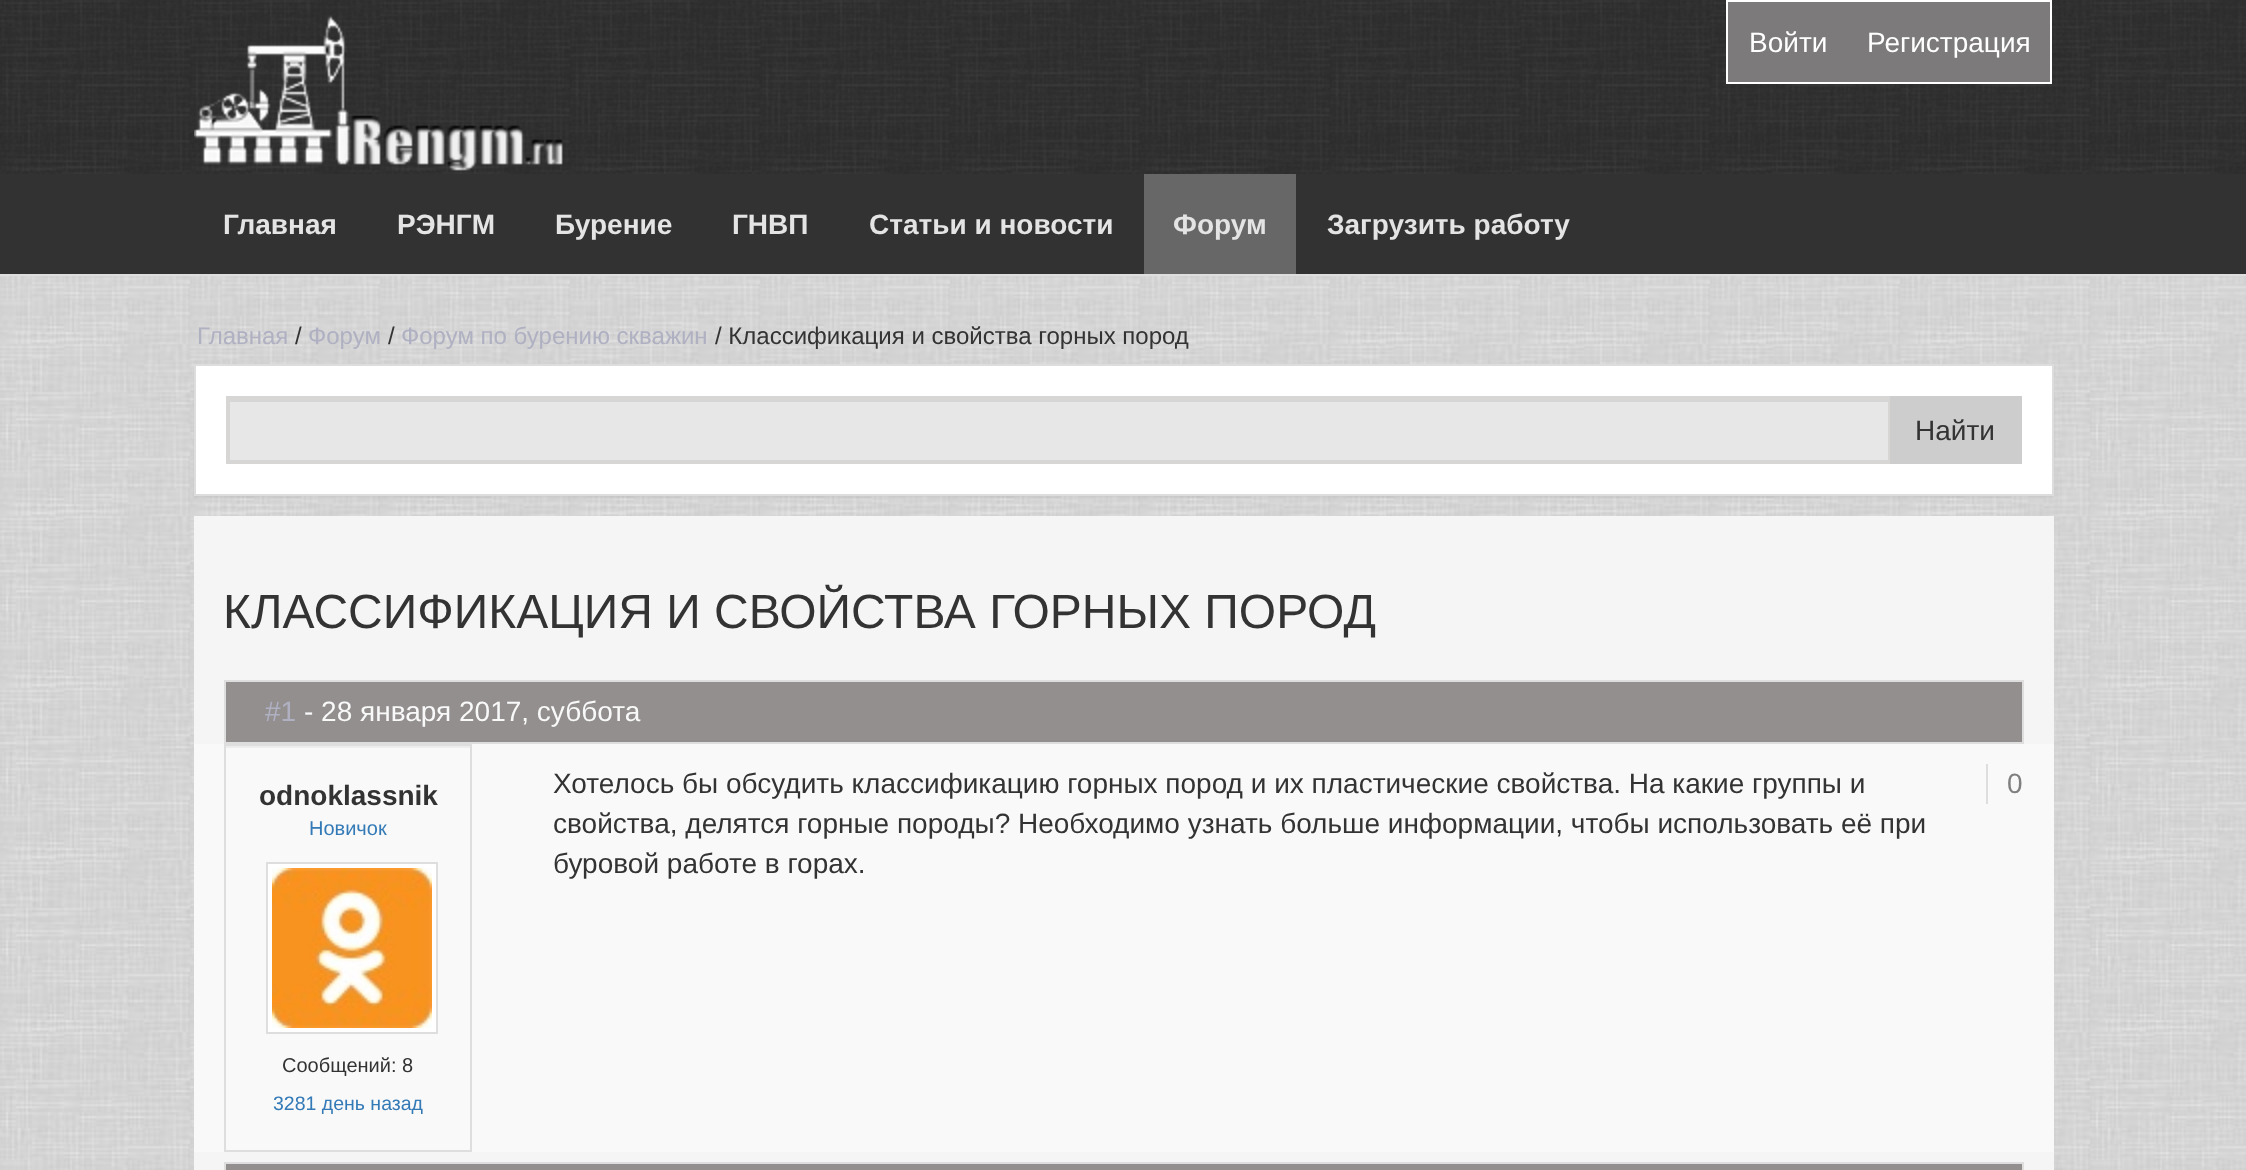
<svg xmlns="http://www.w3.org/2000/svg" xmlns:xlink="http://www.w3.org/1999/xlink" width="2246" height="1170" viewBox="0 0 2246 1170">
<style>
.cls-1{font:28px Liberation Sans;fill:#ffffff}
.cls-2{font:bold 28px Liberation Sans;fill:#e4e4e4}
.cls-3{font:24px Liberation Sans;fill:#afb0c2}
.cls-4{font:24px Liberation Sans;fill:#333333}
.cls-5{font:28px Liberation Sans;fill:#333333}
.cls-6{font:48px Liberation Sans;fill:#333333}
.cls-7{font:28px Liberation Sans;fill:#afb0c2}
.cls-8{font:28px Liberation Sans;fill:#f9f9f9}
.cls-9{font:bold 28px Liberation Sans;fill:#333333}
.cls-10{font:20px Liberation Sans;fill:#337ab7}
.cls-11{font:20px Liberation Sans;fill:#333333}
.cls-12{font:19.5px Liberation Sans;fill:#337ab7}
.cls-13{font:28px Liberation Sans;fill:#808080}
</style>
<rect width="100%" height="100%" fill="#ffffff"/>
<image xlink:href="image0.png" x="0" y="276" width="2246" height="894"/>
<image xlink:href="image1.png" x="0" y="0" width="2246" height="174"/>
<image xlink:href="image2.png" x="194" y="15" width="369" height="156"/>
<rect fill="#ffffff" x="1726" y="0" width="326" height="84"/>
<rect fill="#7c7a7a" x="1728" y="2" width="322" height="80"/>
<rect fill="#323232" x="0" y="174" width="2246" height="100"/>
<rect fill="#dedede" x="0" y="274" width="2246" height="2"/>
<rect fill="#676767" x="1144" y="174" width="152" height="100"/>
<rect fill="#000000" fill-opacity="0.05" filter="blur(1px)" x="194" y="366" width="1860" height="132"/>
<rect fill="#ffffff" stroke="#dddddd" stroke-width="2" x="195" y="365" width="1858" height="130"/>
<rect fill="#e7e7e7" x="230" y="402" width="1658" height="58"/>
<rect fill="#d6d6d6" x="230" y="400" width="1658" height="2"/>
<rect fill="none" stroke="#d8d5d5" stroke-width="4" x="228" y="398" width="1662" height="64"/>
<rect fill="#cdcdcd" x="1890" y="396" width="132" height="68"/>
<rect fill="#f5f5f5" x="194" y="516" width="1860" height="654"/>
<rect fill="#938f8f" stroke="#dedede" stroke-width="2" x="225" y="681" width="1798" height="62"/>
<rect fill="#f9f9f9" x="194" y="744" width="1860" height="408"/>
<rect fill="#ededed" x="226" y="746" width="244" height="2"/>
<rect fill="none" stroke="#dedede" stroke-width="2" x="225" y="745" width="246" height="406"/>
<rect fill="#ffffff" stroke="#dedede" stroke-width="2" x="267" y="863" width="170" height="170"/>
<image xlink:href="image3.png" x="272" y="868" width="160" height="160"/>
<rect fill="#dedede" x="1986" y="764" width="2" height="40"/>
<rect fill="#938f8f" stroke="#dedede" stroke-width="2" x="225" y="1163" width="1798" height="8"/>
<text class="cls-1" x="1749" y="52">Войти</text>
<text class="cls-1" x="1867" y="52">Регистрация</text>
<text class="cls-2" x="223" y="234">Главная</text>
<text class="cls-2" x="397" y="234">РЭНГМ</text>
<text class="cls-2" x="555" y="234">Бурение</text>
<text class="cls-2" x="732" y="234">ГНВП</text>
<text class="cls-2" x="869" y="234">Статьи и новости</text>
<text class="cls-2" x="1173" y="234">Форум</text>
<text class="cls-2" x="1327" y="234">Загрузить работу</text>
<text class="cls-3" x="197" y="344">Главная</text>
<text class="cls-4" x="295" y="344">/</text>
<text class="cls-3" x="308" y="344">Форум</text>
<text class="cls-4" x="388" y="344">/</text>
<text class="cls-3" x="401" y="344">Форум по бурению скважин</text>
<text class="cls-4" x="715" y="344">/ Классификация и свойства горных пород</text>
<text class="cls-5" x="1915" y="440">Найти</text>
<text class="cls-6" x="223" y="628">КЛАССИФИКАЦИЯ И СВОЙСТВА ГОРНЫХ ПОРОД</text>
<text class="cls-7" x="265" y="721">#1</text>
<text class="cls-8" x="304" y="721">- 28 января 2017, суббота</text>
<text class="cls-9" x="259" y="805">odnoklassnik</text>
<text class="cls-10" x="309" y="835">Новичок</text>
<text class="cls-11" x="282" y="1072">Сообщений: 8</text>
<text class="cls-12" x="273" y="1110">3281 день назад</text>
<text class="cls-5"><tspan x="553" y="793">Хотелось бы обсудить классификацию горных пород и их пластические свойства. На какие группы и</tspan><tspan x="553" y="833">свойства, делятся горные породы? Необходимо узнать больше информации, чтобы использовать её при</tspan><tspan x="553" y="873">буровой работе в горах.</tspan></text>
<text class="cls-13" x="2007" y="793">0</text>
</svg>
